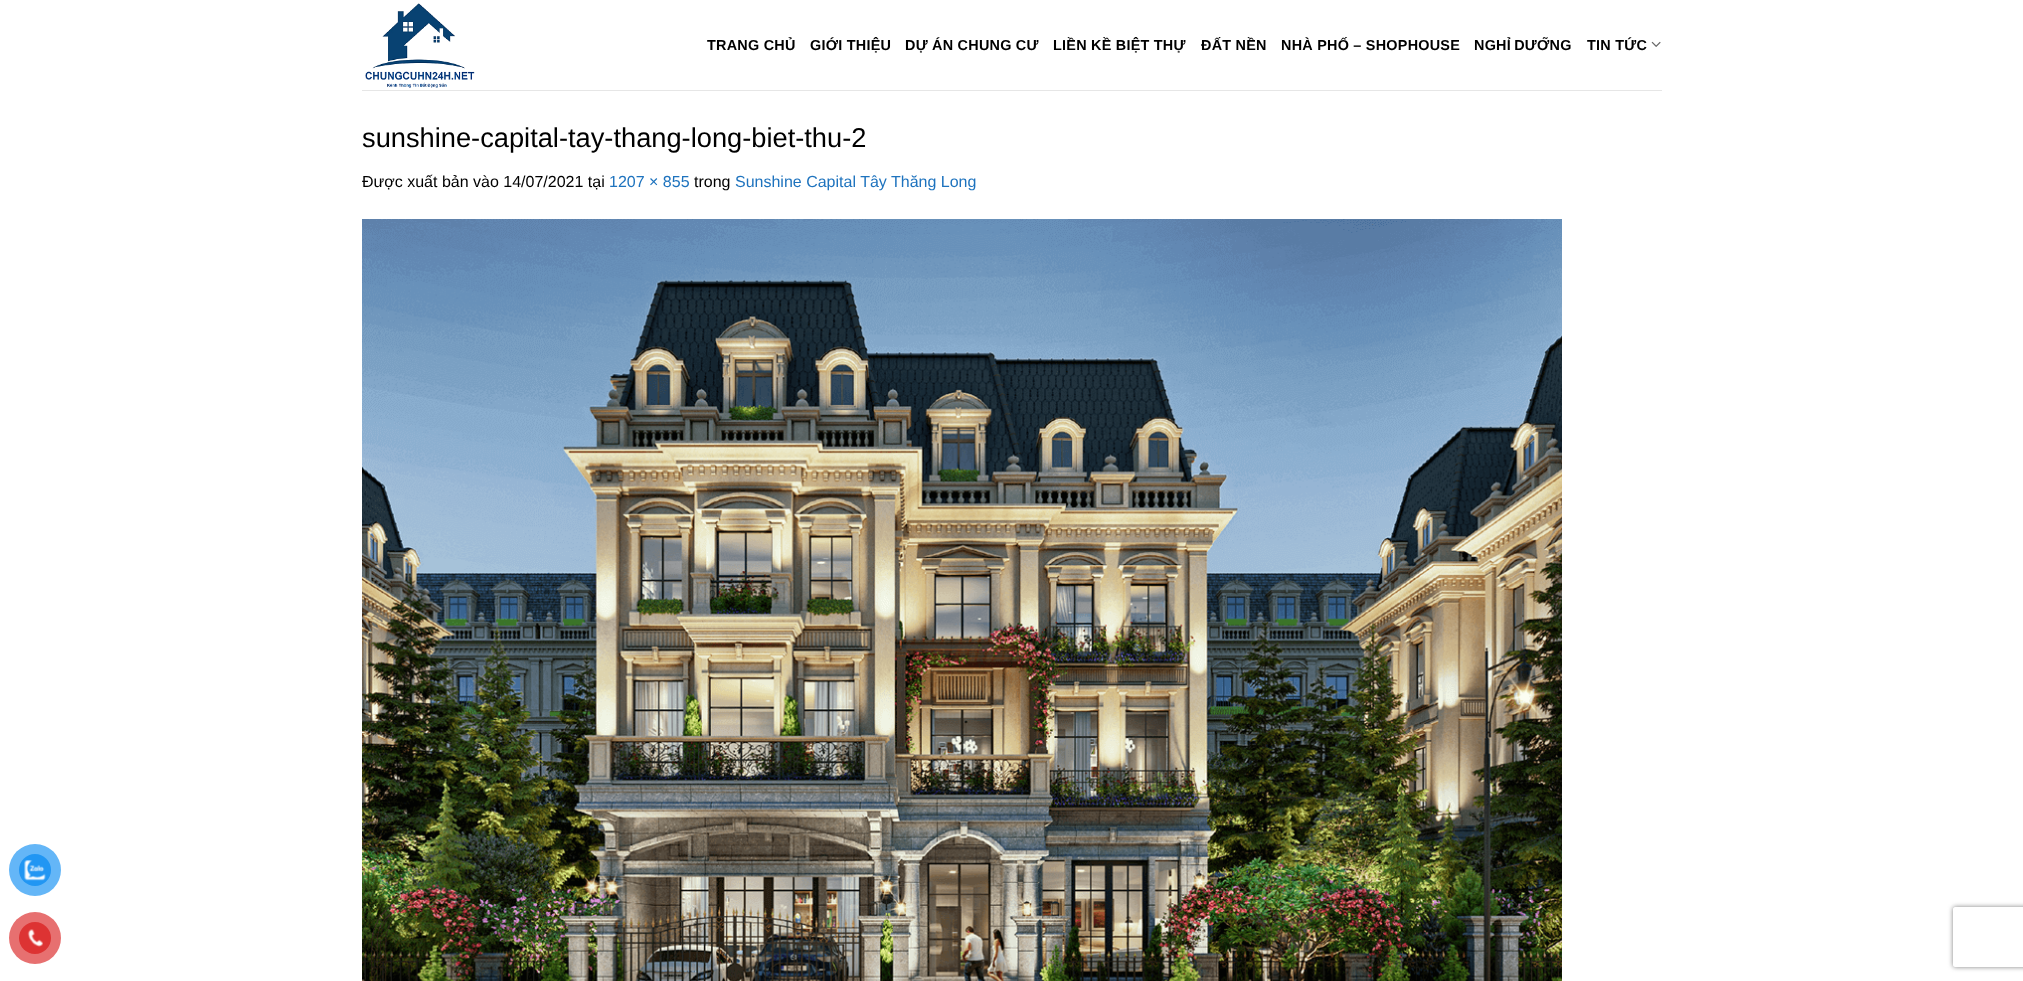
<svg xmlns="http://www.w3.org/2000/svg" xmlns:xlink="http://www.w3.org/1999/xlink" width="2023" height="981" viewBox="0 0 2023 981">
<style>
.cls-1{font:bold 14.4px Arimo;letter-spacing:0.25px;fill:#000000}
.cls-2{font:27.25px Arimo;fill:#000000}
.cls-3{font:16px Arimo;fill:#000000}
.cls-4{font:16px Arimo;fill:#1e73be}
</style>
<defs>
<clipPath id="clip1"><path d="M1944 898H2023V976H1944ZM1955 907H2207C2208 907 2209 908 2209 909V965C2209 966 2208 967 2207 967H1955C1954 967 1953 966 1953 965V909C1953 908 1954 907 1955 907Z" clip-rule="evenodd"/></clipPath>
</defs>
<rect width="100%" height="100%" fill="#ffffff"/>
<image xlink:href="image0.png" x="365" y="3" width="110" height="85"/>
<image xlink:href="image1.png" x="1651" y="41" width="10" height="6"/>
<rect fill="#e6e6e6" x="362" y="90" width="1300" height="1"/>
<image xlink:href="image2.png" x="362" y="219" width="1200" height="762"/>
<circle fill="#64b6f7" cx="35" cy="870" r="26"/>
<circle fill="#2196f3" cx="35" cy="870" r="16"/>
<image xlink:href="image3.png" x="24" y="860" width="22" height="21"/>
<circle fill="#e77070" cx="35" cy="938" r="26"/>
<circle fill="#dd3333" cx="35" cy="938" r="16"/>
<image xlink:href="image4.png" x="27" y="929" width="16" height="18"/>
<g clip-path="url(#clip1)">
<rect fill="#808080" filter="blur(2.5px)" x="1953" y="907" width="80" height="60" rx="2"/>
</g>
<text class="cls-1" x="707" y="50">TRANG CHỦ</text>
<text class="cls-1" x="810" y="50">GIỚI THIỆU</text>
<text class="cls-1" x="905" y="50">DỰ ÁN CHUNG CƯ</text>
<text class="cls-1" x="1053" y="50">LIỀN KỀ BIỆT THỰ</text>
<text class="cls-1" x="1201" y="50">ĐẤT NỀN</text>
<text class="cls-1" x="1281" y="50">NHÀ PHỐ – SHOPHOUSE</text>
<text class="cls-1" x="1474" y="50" word-spacing="-1">NGHỈ DƯỠNG</text>
<text class="cls-1" x="1587" y="50">TIN TỨC</text>
<text class="cls-2" x="362" y="147">sunshine-capital-tay-thang-long-biet-thu-2</text>
<text class="cls-3" x="362" y="187">Được xuất bản vào 14/07/2021 tại</text>
<text class="cls-4" x="609" y="187">1207 × 855</text>
<text class="cls-3" x="694" y="187">trong</text>
<text class="cls-4" x="735" y="187">Sunshine Capital Tây Thăng Long</text>
</svg>
